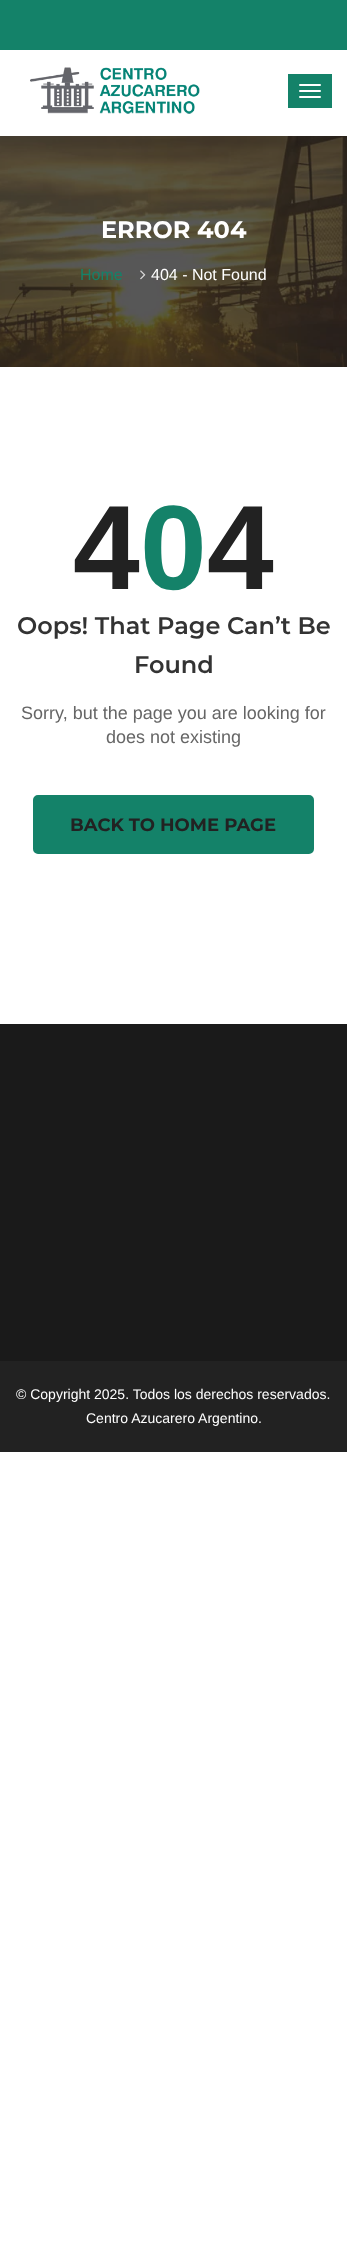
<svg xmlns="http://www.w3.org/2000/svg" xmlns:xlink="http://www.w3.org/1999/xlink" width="347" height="2241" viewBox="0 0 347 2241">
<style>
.cls-1{font:bold 24px Montserrat;fill:#ffffff}
.cls-2{font:16px Liberation Sans;fill:#148269}
.cls-3{font:16px Liberation Sans;fill:#ffffff}
.cls-4{font:bold 120px Liberation Sans;fill:#222222}
.cls-5{font:bold 120px Liberation Sans;fill:#148269}
.cls-6{font:600 24px Montserrat;fill:#333333}
.cls-7{font:18px Liberation Sans;fill:#666666}
.cls-8{font:bold 18px Montserrat;fill:#222222}
.cls-9{font:14px Liberation Sans;fill:#ffffff}
</style>
<rect width="100%" height="100%" fill="#ffffff"/>
<rect fill="#148269" x="0" y="0" width="347" height="50"/>
<image xlink:href="image0.png" x="30" y="67" width="170" height="47"/>
<rect fill="#148269" x="288" y="74" width="44" height="34"/>
<rect fill="#ffffff" x="299" y="84" width="22" height="2" rx="1"/>
<rect fill="#ffffff" x="299" y="90" width="22" height="2" rx="1"/>
<rect fill="#ffffff" x="299" y="96" width="22" height="2" rx="1"/>
<image xlink:href="image1.png" x="0" y="136" width="347" height="231"/>
<image xlink:href="image2.png" x="140" y="270" width="6" height="10"/>
<rect fill="#148269" stroke="#148269" stroke-width="2" x="34" y="796" width="279" height="57" rx="4"/>
<rect fill="#1a1a1a" x="0" y="1024" width="347" height="337"/>
<rect fill="#222222" x="0" y="1361" width="347" height="91"/>
<text class="cls-1" x="101" y="238">ERROR 404</text>
<text class="cls-2" x="80" y="280">Home</text>
<text class="cls-3" x="151" y="280">404 - Not Found</text>
<text class="cls-4" x="73" y="589">4</text>
<text class="cls-5" x="140" y="589">0</text>
<text class="cls-4" x="207" y="589">4</text>
<text class="cls-6" x="17" y="634">Oops! That Page Can’t Be</text>
<text class="cls-6" x="134" y="673">Found</text>
<text class="cls-7" x="21" y="719">Sorry, but the page you are looking for</text>
<text class="cls-7" x="106" y="743">does not existing</text>
<text class="cls-8" x="70" y="831">BACK TO HOME PAGE</text>
<text class="cls-9" x="16" y="1399">© Copyright 2025. Todos los derechos reservados.</text>
<text class="cls-9" x="86" y="1423">Centro Azucarero Argentino.</text>
</svg>
